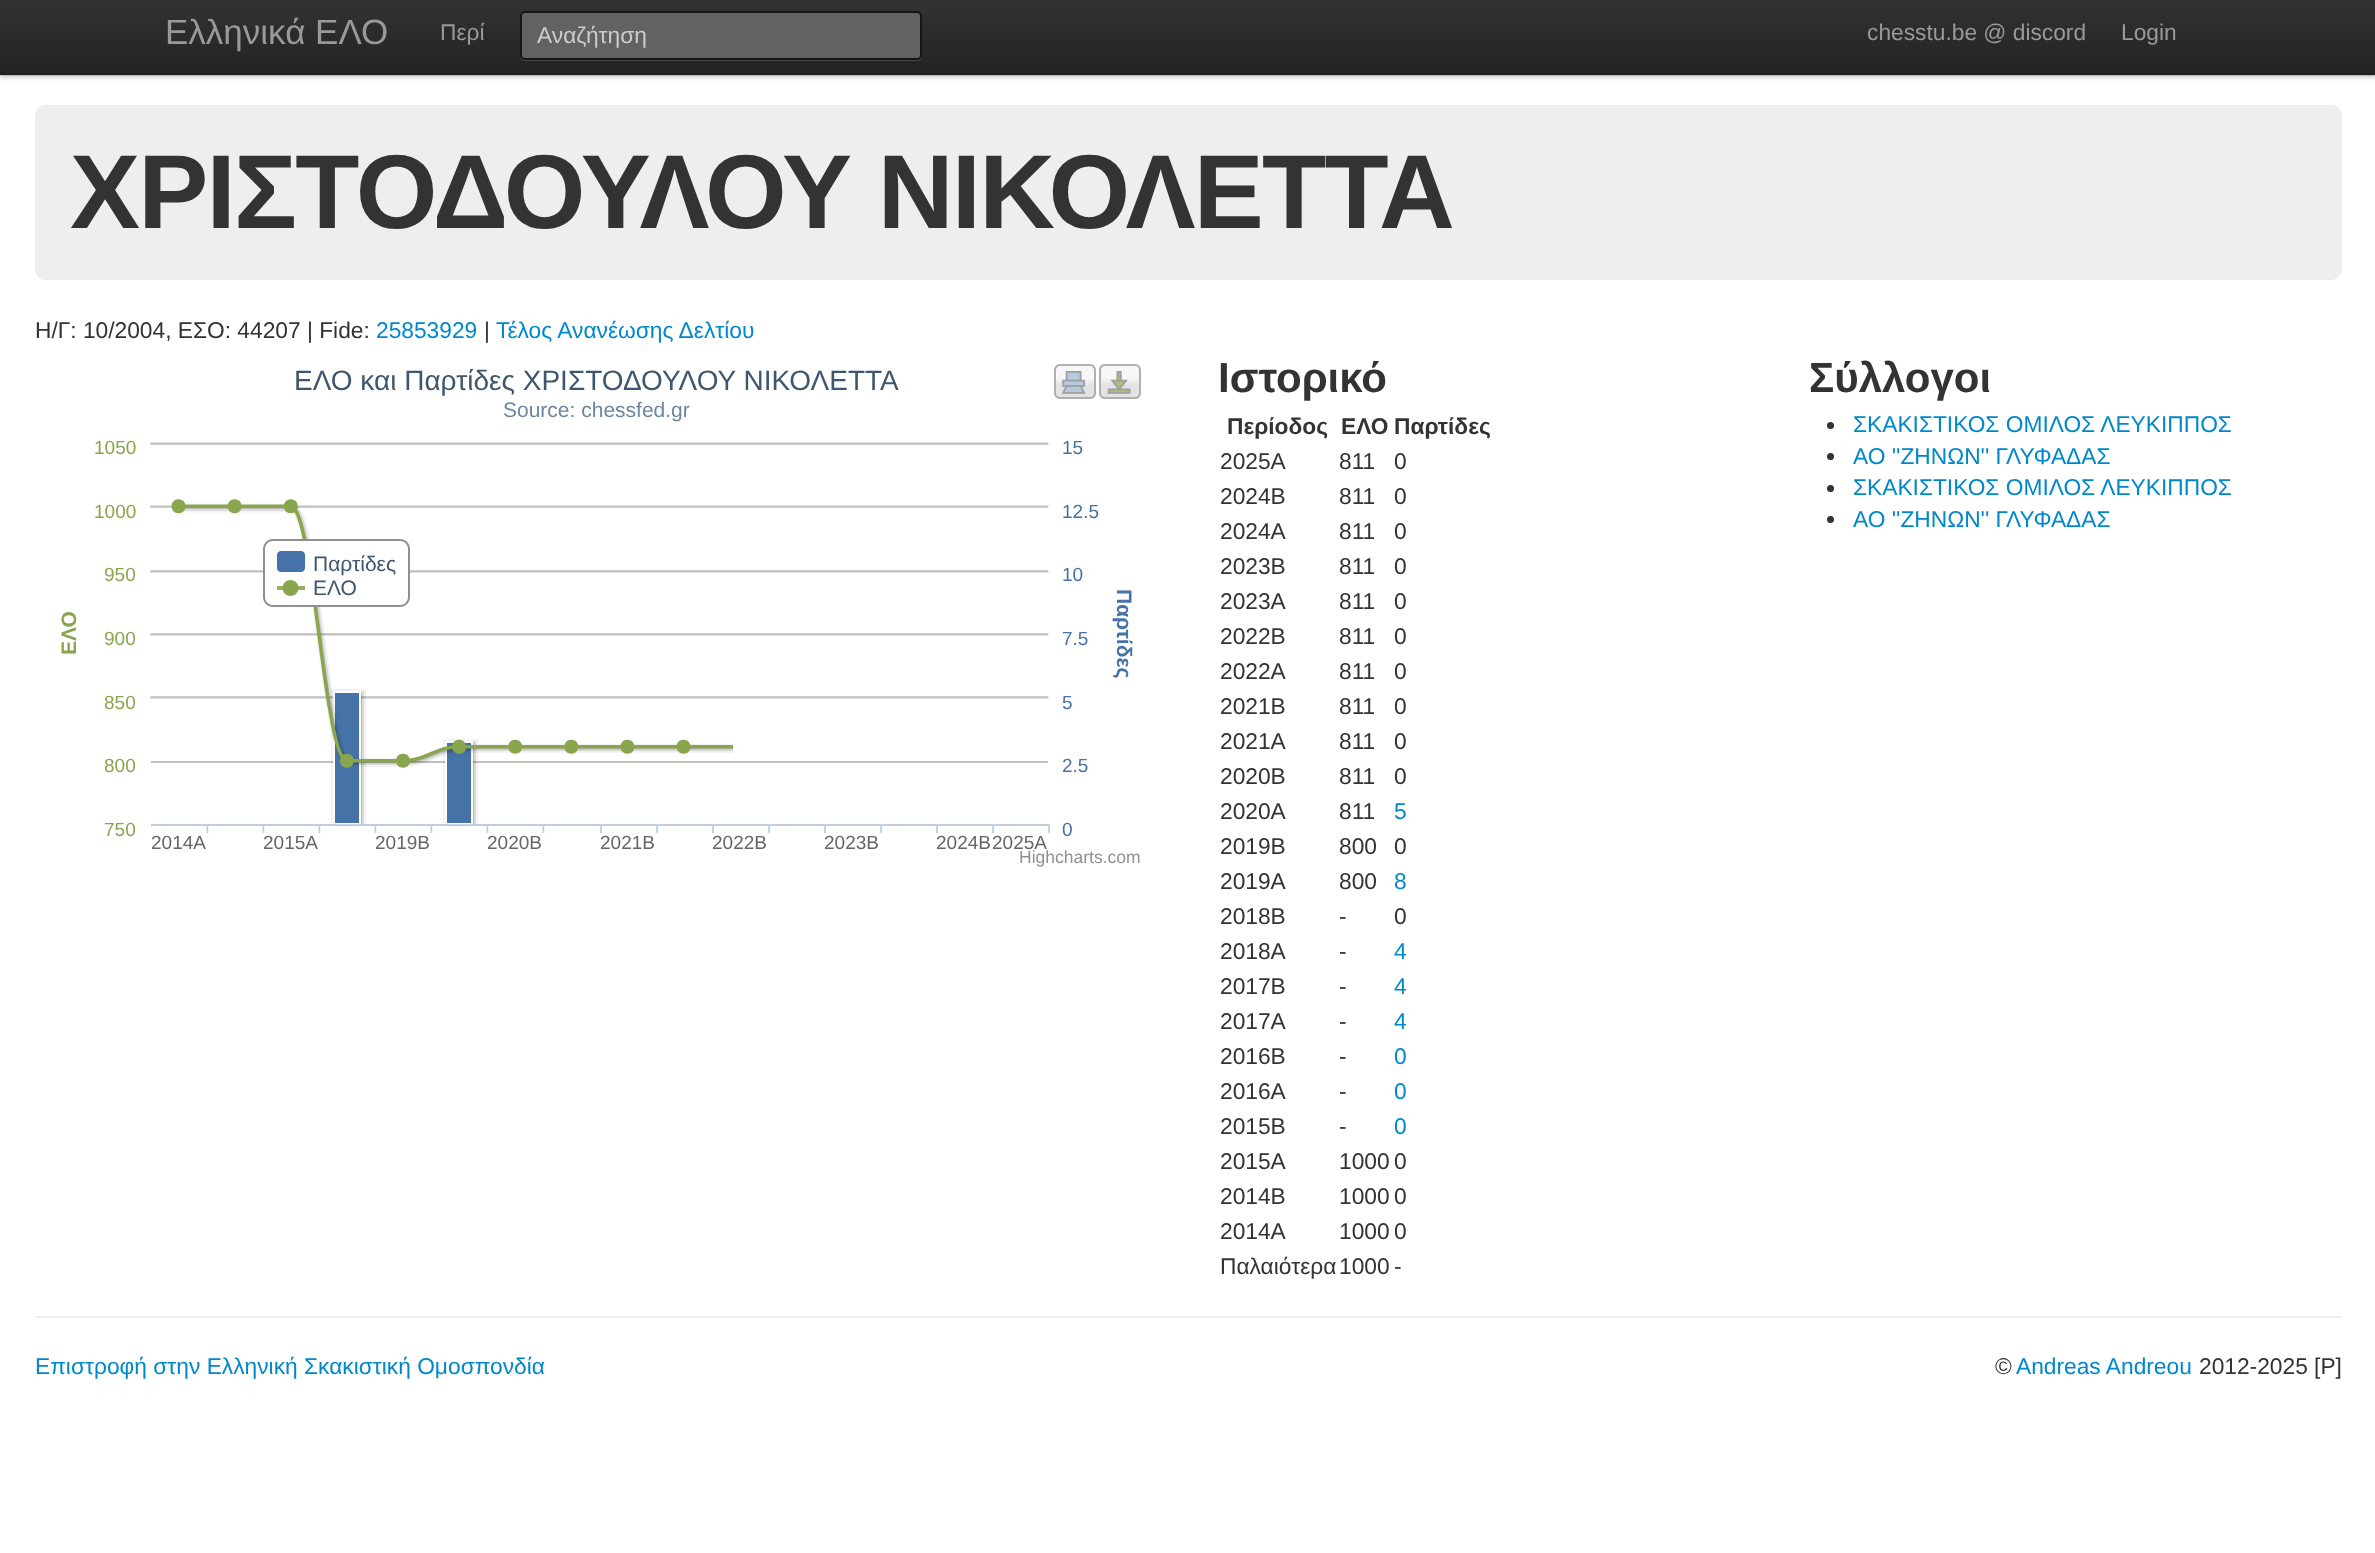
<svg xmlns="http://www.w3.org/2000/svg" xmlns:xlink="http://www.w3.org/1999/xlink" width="2375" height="1553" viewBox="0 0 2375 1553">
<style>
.cls-1{font:35px Liberation Sans;fill:#999999}
.cls-2{font:22.75px Liberation Sans;fill:#999999}
.cls-3{font:22.75px Liberation Sans;fill:#cccccc}
.cls-4{font:bold 105px Liberation Sans;letter-spacing:-1.75px;fill:#333333}
.cls-5{font:22.75px Liberation Sans;fill:#333333}
.cls-6{font:22.75px Liberation Sans;fill:#0088cc}
.cls-7{font:28px Liberation Sans;fill:#3e576f}
.cls-8{font:21px Liberation Sans;fill:#6d869f}
.cls-9{font:19px Liberation Sans;fill:#89a54e}
.cls-10{font:19px Liberation Sans;fill:#4572a7}
.cls-11{font:21px Liberation Sans;fill:#3e576f}
.cls-12{font:bold 21px Liberation Sans;fill:#89a54e}
.cls-13{font:bold 21px Liberation Sans;fill:#4572a7}
.cls-14{font:19px Liberation Sans;fill:#666666}
.cls-15{font:17.5px Liberation Sans;fill:#909090}
.cls-16{font:bold 42px Liberation Sans;fill:#333333}
.cls-17{font:bold 22.75px Liberation Sans;fill:#333333}
</style>
<defs>
<linearGradient id="g1" gradientUnits="userSpaceOnUse" x1="1188" y1="0" x2="1188" y2="75"><stop offset="0" stop-color="#333333"/><stop offset="1" stop-color="#222222"/></linearGradient>
</defs>
<rect width="100%" height="100%" fill="#ffffff"/>
<rect fill="#000000" fill-opacity="0.25" filter="blur(2.5px)" x="0" y="2" width="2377" height="75"/>
<rect fill="url(#g1)" x="0" y="0" width="2375" height="75"/>
<rect fill="#000000" fill-opacity="0.1" x="0" y="74" width="2375" height="2"/>
<path fill="#464646" d="M520 56C520 59 522 61 525 61H917C920 61 922 59 922 56C921 58 919 60 917 60H525C523 60 521 58 520 56Z"/>
<rect fill="#626262" stroke="#151515" stroke-width="2" x="521" y="12" width="400" height="47" rx="4"/>
<rect fill="#eeeeee" x="35" y="105" width="2307" height="175" rx="11"/>
<image xlink:href="image0.png" x="150" y="364" width="991" height="469"/>
<circle fill="#333333" cx="1830.5" cy="425.5" r="3.5"/>
<circle fill="#333333" cx="1830.5" cy="456.5" r="3.5"/>
<circle fill="#333333" cx="1830.5" cy="488.5" r="3.5"/>
<circle fill="#333333" cx="1830.5" cy="519.5" r="3.5"/>
<rect fill="#eeeeee" x="35" y="1316" width="2307" height="2"/>
<text class="cls-1" x="165" y="44">Ελληνικά ΕΛΟ</text>
<text class="cls-2" x="440" y="40">Περί</text>
<text class="cls-3" x="537" y="43">Αναζήτηση</text>
<text class="cls-2" x="1867" y="40">chesstu.be @ discord</text>
<text class="cls-2" x="2121" y="40">Login</text>
<text class="cls-4" x="70" y="228">ΧΡΙΣΤΟΔΟΥΛΟΥ ΝΙΚΟΛΕΤΤΑ</text>
<text class="cls-5" x="35" y="338">Η/Γ: 10/2004, ΕΣΟ: 44207 | Fide:</text>
<text class="cls-6" x="376" y="338">25853929</text>
<text class="cls-5" x="484" y="338">|</text>
<text class="cls-6" x="496" y="338">Τέλος Ανανέωσης Δελτίου</text>
<text class="cls-7" x="294" y="390">ΕΛΟ και Παρτίδες ΧΡΙΣΤΟΔΟΥΛΟΥ ΝΙΚΟΛΕΤΤΑ</text>
<text class="cls-8" x="503" y="417">Source: chessfed.gr</text>
<text class="cls-9" x="94" y="454">1050</text>
<text class="cls-10" x="1062" y="454">15</text>
<text class="cls-9" x="94" y="518">1000</text>
<text class="cls-10" x="1062" y="518">12.5</text>
<text class="cls-9" x="104" y="581">950</text>
<text class="cls-11" x="313" y="571">Παρτίδες</text>
<text class="cls-10" x="1062" y="581">10</text>
<text class="cls-11" x="313" y="595">ΕΛΟ</text>
<text class="cls-12" x="76" y="655" transform="rotate(-90 76 655)">ΕΛΟ</text>
<text class="cls-9" x="104" y="645">900</text>
<text class="cls-10" x="1062" y="645">7.5</text>
<text class="cls-13" x="1117" y="589" transform="rotate(90 1117 589)">Παρτίδες</text>
<text class="cls-9" x="104" y="709">850</text>
<text class="cls-10" x="1062" y="709">5</text>
<text class="cls-9" x="104" y="772">800</text>
<text class="cls-10" x="1062" y="772">2.5</text>
<text class="cls-9" x="104" y="836">750</text>
<text class="cls-10" x="1062" y="836">0</text>
<text class="cls-14" x="151" y="849">2014A</text>
<text class="cls-14" x="263" y="849">2015A</text>
<text class="cls-14" x="375" y="849">2019B</text>
<text class="cls-14" x="487" y="849">2020B</text>
<text class="cls-14" x="600" y="849">2021B</text>
<text class="cls-14" x="712" y="849">2022B</text>
<text class="cls-14" x="824" y="849">2023B</text>
<text class="cls-14" x="936" y="849">2024B</text>
<text class="cls-14" x="992" y="849">2025A</text>
<text class="cls-15" x="1019" y="863">Highcharts.com</text>
<text class="cls-16" x="1218" y="392">Ιστορικό</text>
<text class="cls-17" x="1227" y="434">Περίοδος</text>
<text class="cls-17" x="1341" y="434">ΕΛΟ</text>
<text class="cls-17" x="1394" y="434">Παρτίδες</text>
<text class="cls-5" x="1220" y="469">2025A</text>
<text class="cls-5" x="1339" y="469">811</text>
<text class="cls-5" x="1394" y="469">0</text>
<text class="cls-5" x="1220" y="504">2024B</text>
<text class="cls-5" x="1339" y="504">811</text>
<text class="cls-5" x="1394" y="504">0</text>
<text class="cls-5" x="1220" y="539">2024A</text>
<text class="cls-5" x="1339" y="539">811</text>
<text class="cls-5" x="1394" y="539">0</text>
<text class="cls-5" x="1220" y="574">2023B</text>
<text class="cls-5" x="1339" y="574">811</text>
<text class="cls-5" x="1394" y="574">0</text>
<text class="cls-5" x="1220" y="609">2023Α</text>
<text class="cls-5" x="1339" y="609">811</text>
<text class="cls-5" x="1394" y="609">0</text>
<text class="cls-5" x="1220" y="644">2022B</text>
<text class="cls-5" x="1339" y="644">811</text>
<text class="cls-5" x="1394" y="644">0</text>
<text class="cls-5" x="1220" y="679">2022A</text>
<text class="cls-5" x="1339" y="679">811</text>
<text class="cls-5" x="1394" y="679">0</text>
<text class="cls-5" x="1220" y="714">2021B</text>
<text class="cls-5" x="1339" y="714">811</text>
<text class="cls-5" x="1394" y="714">0</text>
<text class="cls-5" x="1220" y="749">2021A</text>
<text class="cls-5" x="1339" y="749">811</text>
<text class="cls-5" x="1394" y="749">0</text>
<text class="cls-5" x="1220" y="784">2020B</text>
<text class="cls-5" x="1339" y="784">811</text>
<text class="cls-5" x="1394" y="784">0</text>
<text class="cls-5" x="1220" y="819">2020A</text>
<text class="cls-5" x="1339" y="819">811</text>
<text class="cls-6" x="1394" y="819">5</text>
<text class="cls-5" x="1220" y="854">2019B</text>
<text class="cls-5" x="1339" y="854">800</text>
<text class="cls-5" x="1394" y="854">0</text>
<text class="cls-5" x="1220" y="889">2019A</text>
<text class="cls-5" x="1339" y="889">800</text>
<text class="cls-6" x="1394" y="889">8</text>
<text class="cls-5" x="1220" y="924">2018B</text>
<text class="cls-5" x="1339" y="924">-</text>
<text class="cls-5" x="1394" y="924">0</text>
<text class="cls-5" x="1220" y="959">2018A</text>
<text class="cls-5" x="1339" y="959">-</text>
<text class="cls-6" x="1394" y="959">4</text>
<text class="cls-5" x="1220" y="994">2017B</text>
<text class="cls-5" x="1339" y="994">-</text>
<text class="cls-6" x="1394" y="994">4</text>
<text class="cls-5" x="1220" y="1029">2017A</text>
<text class="cls-5" x="1339" y="1029">-</text>
<text class="cls-6" x="1394" y="1029">4</text>
<text class="cls-5" x="1220" y="1064">2016B</text>
<text class="cls-5" x="1339" y="1064">-</text>
<text class="cls-6" x="1394" y="1064">0</text>
<text class="cls-5" x="1220" y="1099">2016A</text>
<text class="cls-5" x="1339" y="1099">-</text>
<text class="cls-6" x="1394" y="1099">0</text>
<text class="cls-5" x="1220" y="1134">2015B</text>
<text class="cls-5" x="1339" y="1134">-</text>
<text class="cls-6" x="1394" y="1134">0</text>
<text class="cls-5" x="1220" y="1169">2015A</text>
<text class="cls-5" x="1339" y="1169">1000</text>
<text class="cls-5" x="1394" y="1169">0</text>
<text class="cls-5" x="1220" y="1204">2014B</text>
<text class="cls-5" x="1339" y="1204">1000</text>
<text class="cls-5" x="1394" y="1204">0</text>
<text class="cls-5" x="1220" y="1239">2014A</text>
<text class="cls-5" x="1339" y="1239">1000</text>
<text class="cls-5" x="1394" y="1239">0</text>
<text class="cls-5" x="1220" y="1274">Παλαιότερα</text>
<text class="cls-5" x="1339" y="1274">1000</text>
<text class="cls-5" x="1394" y="1274">-</text>
<text class="cls-16" x="1809" y="392">Σύλλογοι</text>
<text class="cls-6"><tspan x="1853" y="432">ΣΚΑΚΙΣΤΙΚΟΣ ΟΜΙΛΟΣ ΛΕΥΚΙΠΠΟΣ</tspan><tspan x="1853" y="464">ΑΟ ''ΖΗΝΩΝ'' ΓΛΥΦΑΔΑΣ</tspan><tspan x="1853" y="495">ΣΚΑΚΙΣΤΙΚΟΣ ΟΜΙΛΟΣ ΛΕΥΚΙΠΠΟΣ</tspan><tspan x="1853" y="527">ΑΟ ''ΖΗΝΩΝ'' ΓΛΥΦΑΔΑΣ</tspan></text>
<text class="cls-6" x="35" y="1374">Επιστροφή στην Ελληνική Σκακιστική Ομοσπονδία</text>
<text class="cls-5" x="1995" y="1374">©</text>
<text class="cls-6" x="2016" y="1374">Andreas Andreou</text>
<text class="cls-5" x="2199" y="1374">2012-2025 [P]</text>
</svg>
